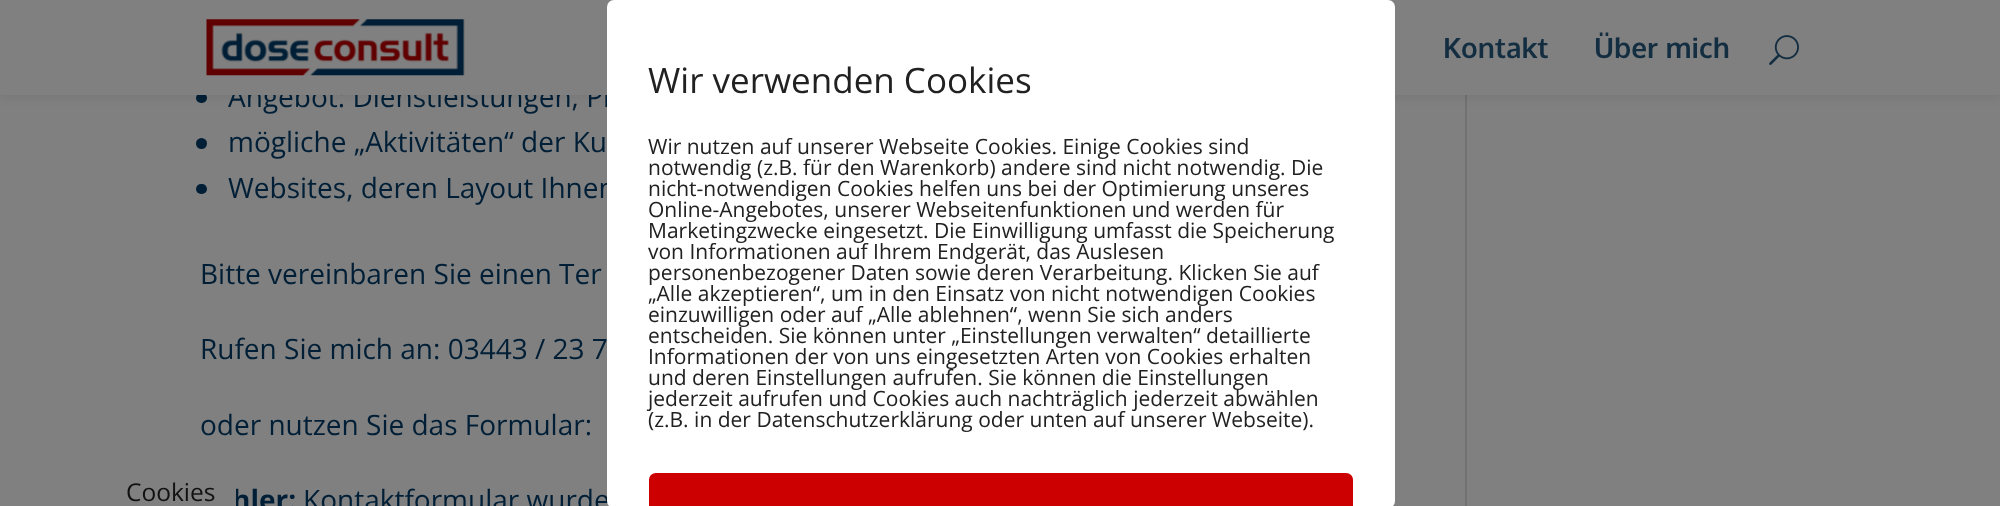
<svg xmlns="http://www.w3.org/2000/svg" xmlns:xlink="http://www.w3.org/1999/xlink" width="2000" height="506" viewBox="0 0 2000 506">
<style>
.cls-1{font:28px Open Sans;fill:#001f36}
.cls-2{font:bold 28px Oxygen;fill:#132d41}
.cls-3{font:bold 28px Open Sans;fill:#001f36}
.cls-4{font:35px Open Sans;fill:#212121}
.cls-5{font:21px Open Sans;fill:#212121}
.cls-6{font:24.5px Open Sans;fill:#111111}
</style>
<rect width="100%" height="100%" fill="#808080"/>
<rect fill="#001f36" x="196" y="93" width="11" height="10" rx="5"/>
<rect fill="#717171" x="1465" y="95" width="2" height="411"/>
<rect fill="#000000" fill-opacity="0.1" filter="blur(6px)" x="0" y="0" width="2000" height="95"/>
<circle fill="#001f36" cx="201.5" cy="143.5" r="5.5"/>
<rect fill="#001f36" x="196" y="184" width="11" height="10" rx="5"/>
<text class="cls-1" x="228" y="107">Angebot: Dienstleistungen, Pr</text>
<rect fill="#808080" x="0" y="0" width="2000" height="95"/>
<image xlink:href="image1.png" x="1769" y="35" width="30" height="30"/>
<text class="cls-2" x="1594" y="58">Über mich</text>
<text class="cls-2" x="1443" y="58">Kontakt</text>
<image xlink:href="image0.png" x="206" y="19" width="259" height="57"/>
<text class="cls-1"><tspan x="228" y="152">mögliche „Aktivitäten“ der Ku</tspan><tspan x="228" y="198">Websites, deren Layout Ihnen</tspan></text>
<text class="cls-1" x="200" y="284">Bitte vereinbaren Sie einen Ter</text>
<text class="cls-1" x="200" y="359">Rufen Sie mich an: 03443 / 23 7</text>
<text class="cls-1" x="200" y="435">oder nutzen Sie das Formular:</text>
<text class="cls-3" x="232" y="510">hler:</text>
<text class="cls-1" x="303" y="510">Kontaktformular wurde</text>
<rect fill="#ffffff" x="607" y="0" width="788" height="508" rx="7"/>
<text class="cls-4" x="648" y="93">Wir verwenden Cookies</text>
<text class="cls-5"><tspan x="648" y="154">Wir nutzen auf unserer Webseite Cookies. Einige Cookies sind</tspan><tspan x="648" y="175">notwendig (z.B. für den Warenkorb) andere sind nicht notwendig. Die</tspan><tspan x="648" y="196">nicht-notwendigen Cookies helfen uns bei der Optimierung unseres</tspan><tspan x="648" y="217">Online-Angebotes, unserer Webseitenfunktionen und werden für</tspan><tspan x="648" y="238">Marketingzwecke eingesetzt. Die Einwilligung umfasst die Speicherung</tspan><tspan x="648" y="259">von Informationen auf Ihrem Endgerät, das Auslesen</tspan><tspan x="648" y="280">personenbezogener Daten sowie deren Verarbeitung. Klicken Sie auf</tspan><tspan x="648" y="301">„Alle akzeptieren“, um in den Einsatz von nicht notwendigen Cookies</tspan><tspan x="648" y="322">einzuwilligen oder auf „Alle ablehnen“, wenn Sie sich anders</tspan><tspan x="648" y="343">entscheiden. Sie können unter „Einstellungen verwalten“ detaillierte</tspan><tspan x="648" y="364">Informationen der von uns eingesetzten Arten von Cookies erhalten</tspan><tspan x="648" y="385">und deren Einstellungen aufrufen. Sie können die Einstellungen</tspan><tspan x="648" y="406">jederzeit aufrufen und Cookies auch nachträglich jederzeit abwählen</tspan><tspan x="648" y="427">(z.B. in der Datenschutzerklärung oder unten auf unserer Webseite).</tspan></text>
<path fill="#cc0000" d="M656 473H1346C1350 473 1353 476 1353 480V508H649V480C649 476 652 473 656 473Z"/>
<path fill="#808080" d="M112 474H229C233 474 236 477 236 481V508H105V481C105 477 108 474 112 474Z"/>
<text class="cls-6" x="126" y="501">Cookies</text>
</svg>
